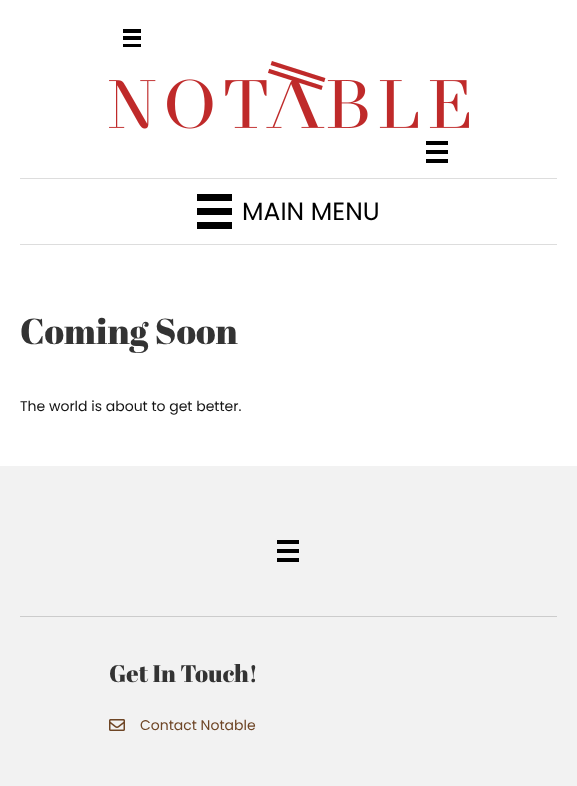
<svg xmlns="http://www.w3.org/2000/svg" xmlns:xlink="http://www.w3.org/1999/xlink" width="577" height="786" viewBox="0 0 577 786">
<style>
.cls-1{font:25px Poppins;fill:#000000}
.cls-2{font:36px Abril Fatface;fill:#333333}
.cls-3{font:14px Poppins;fill:#141414}
.cls-4{font:24px Abril Fatface;fill:#333333}
.cls-5{font:14px Poppins;fill:#6e4525}
</style>
<rect width="100%" height="100%" fill="#f2f2f2"/>
<rect fill="#ffffff" x="0" y="0" width="577" height="466"/>
<rect fill="#000000" x="123" y="29" width="18" height="4"/>
<rect fill="#000000" x="123" y="36" width="18" height="4"/>
<rect fill="#000000" x="123" y="44" width="18" height="3"/>
<image xlink:href="image0.png" x="109" y="61" width="360" height="68"/>
<rect fill="#000000" x="426" y="141" width="22" height="4"/>
<rect fill="#000000" x="426" y="150" width="22" height="4"/>
<rect fill="#000000" x="426" y="159" width="22" height="4"/>
<rect fill="#dddddd" x="20" y="178" width="537" height="1"/>
<rect fill="#000000" x="197" y="194" width="35" height="7"/>
<rect fill="#000000" x="197" y="208" width="35" height="7"/>
<rect fill="#000000" x="197" y="222" width="35" height="7"/>
<rect fill="#dddddd" x="20" y="244" width="537" height="1"/>
<rect fill="#000000" x="277" y="540" width="22" height="4"/>
<rect fill="#000000" x="277" y="549" width="22" height="4"/>
<rect fill="#000000" x="277" y="558" width="22" height="4"/>
<rect fill="#cccccc" x="20" y="616" width="537" height="1"/>
<image xlink:href="image1.png" x="109" y="719" width="16" height="12"/>
<text class="cls-1" x="242" y="220">MAIN MENU</text>
<text class="cls-2" x="20" y="344">Coming Soon</text>
<text class="cls-3" x="20" y="411">The world is about to get better.</text>
<text class="cls-4" x="109" y="682">Get In Touch!</text>
<text class="cls-5" x="140" y="730">Contact Notable</text>
</svg>
